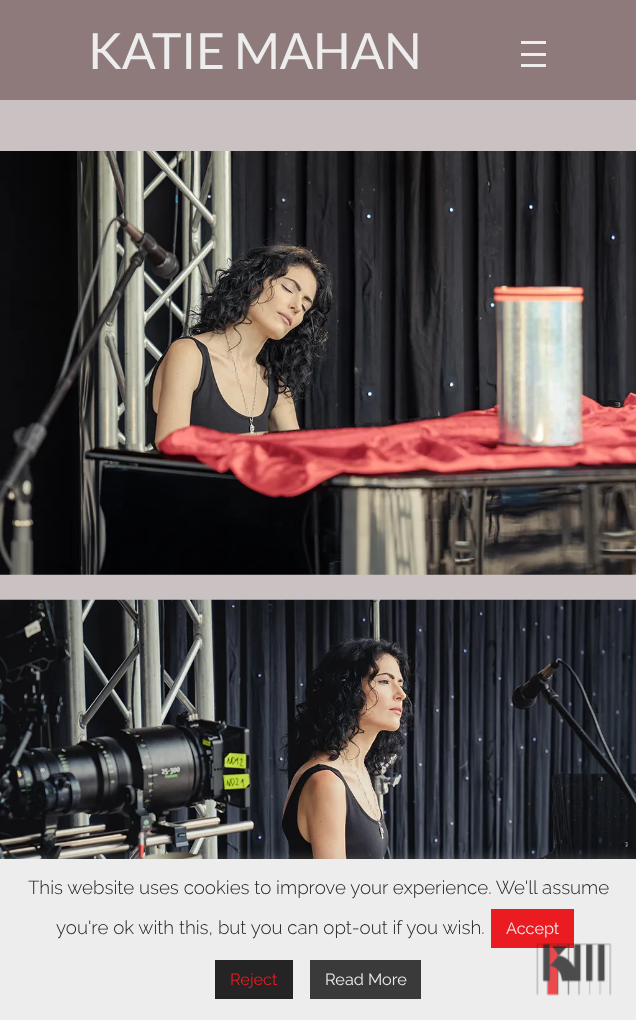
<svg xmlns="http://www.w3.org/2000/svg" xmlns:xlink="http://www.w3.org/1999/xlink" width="636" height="1020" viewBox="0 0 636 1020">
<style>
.cls-1{font:50px Lato;letter-spacing:-0.4px;fill:#ededed}
.cls-2{font:300 18.75px Raleway;fill:#242424}
.cls-3{font:16.25px Raleway;fill:#ededed}
.cls-4{font:16.25px Raleway;fill:#ea1c21}
</style>
<rect width="100%" height="100%" fill="#cac2c2"/>
<rect fill="#8e7a7a" x="0" y="0" width="636" height="100"/>
<rect fill="#ededed" x="521" y="41" width="25" height="3"/>
<rect fill="#ededed" x="521" y="53" width="25" height="3"/>
<rect fill="#ededed" x="521" y="64" width="25" height="3"/>
<image xlink:href="image0.png" x="0" y="151" width="636" height="424"/>
<image xlink:href="image1.png" x="0" y="599" width="636" height="260"/>
<rect fill="#acabab" fill-opacity="0.3" filter="blur(6px)" x="0" y="858" width="636" height="161"/>
<rect fill="#ededed" x="0" y="859" width="636" height="161"/>
<rect fill="#ea1c21" x="491" y="909" width="83" height="39"/>
<rect fill="#242424" x="215" y="960" width="78" height="39"/>
<rect fill="#3a3a3a" x="310" y="960" width="111" height="39"/>
<image xlink:href="image2.png" x="536" y="943" width="76" height="53"/>
<text class="cls-1" x="88" y="69">KATIE MAHAN</text>
<text class="cls-2" x="28" y="894">This website uses cookies to improve your experience. We'll assume</text>
<text class="cls-2" x="56" y="934">you're ok with this, but you can opt-out if you wish.</text>
<text class="cls-3" x="506" y="934">Accept</text>
<text class="cls-4" x="230" y="985">Reject</text>
<text class="cls-3" x="325" y="985">Read More</text>
</svg>
